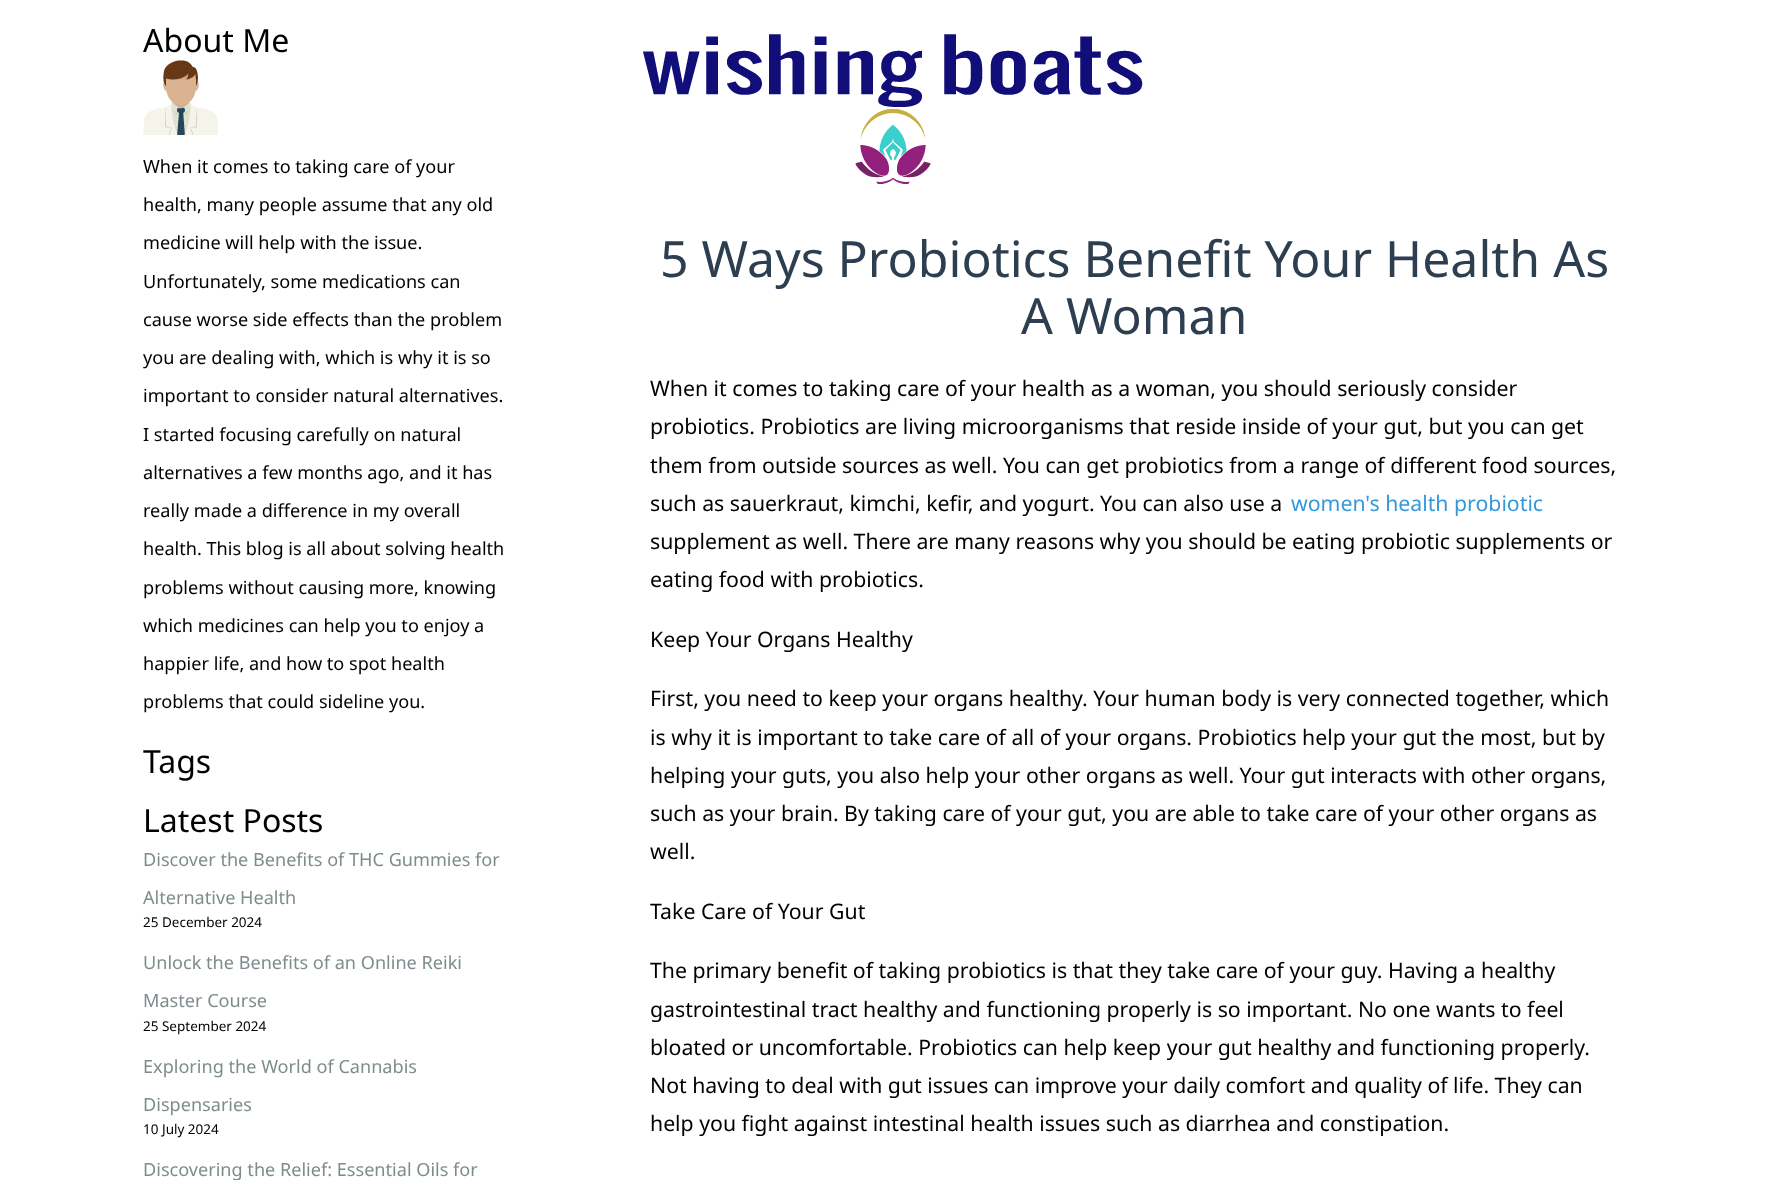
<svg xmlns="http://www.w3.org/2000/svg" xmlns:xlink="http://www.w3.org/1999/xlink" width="1786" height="1180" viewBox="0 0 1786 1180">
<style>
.cls-1{font:32px Noto Sans;fill:#000000}
.cls-2{font:18.1px Noto Sans;fill:#000000}
.cls-3{font:18.1px Noto Sans;fill:#7f8c8d}
.cls-4{font:13.5px Noto Sans;fill:#000000}
.cls-5{font:50px Noto Sans;fill:#2c3e50}
.cls-6{font:21.25px Noto Sans;fill:#000000}
.cls-7{font:21.25px Noto Sans;fill:#3498db}
</style>
<rect width="100%" height="100%" fill="#ffffff"/>
<image xlink:href="image0.png" x="143" y="60" width="75" height="75"/>
<image xlink:href="image1.png" x="643" y="34" width="500" height="150"/>
<text class="cls-1" x="143" y="52">About Me</text>
<text class="cls-2" x="143" y="173">When it comes to taking care of your</text>
<text class="cls-2" x="143" y="211">health, many people assume that any old</text>
<text class="cls-2" x="143" y="249">medicine will help with the issue.</text>
<text class="cls-2" x="143" y="288">Unfortunately, some medications can</text>
<text class="cls-2" x="143" y="326">cause worse side effects than the problem</text>
<text class="cls-2" x="143" y="364">you are dealing with, which is why it is so</text>
<text class="cls-2" x="143" y="402">important to consider natural alternatives.</text>
<text class="cls-2" x="143" y="441">I started focusing carefully on natural</text>
<text class="cls-2" x="143" y="479">alternatives a few months ago, and it has</text>
<text class="cls-2" x="143" y="517">really made a difference in my overall</text>
<text class="cls-2" x="143" y="555">health. This blog is all about solving health</text>
<text class="cls-2" x="143" y="594">problems without causing more, knowing</text>
<text class="cls-2" x="143" y="632">which medicines can help you to enjoy a</text>
<text class="cls-2" x="143" y="670">happier life, and how to spot health</text>
<text class="cls-2" x="143" y="708">problems that could sideline you.</text>
<text class="cls-1"><tspan x="143" y="773">Tags</tspan><tspan x="143" y="832">Latest Posts</tspan></text>
<text class="cls-3" x="143" y="866">Discover the Benefits of THC Gummies for</text>
<text class="cls-3" x="143" y="904">Alternative Health</text>
<text class="cls-4" x="143" y="927">25 December 2024</text>
<text class="cls-3" x="143" y="969">Unlock the Benefits of an Online Reiki</text>
<text class="cls-3" x="143" y="1007">Master Course</text>
<text class="cls-4" x="143" y="1031">25 September 2024</text>
<text class="cls-3" x="143" y="1073">Exploring the World of Cannabis</text>
<text class="cls-3" x="143" y="1111">Dispensaries</text>
<text class="cls-4" x="143" y="1134">10 July 2024</text>
<text class="cls-3" x="143" y="1176">Discovering the Relief: Essential Oils for</text>
<text class="cls-5" x="660" y="277">5 Ways Probiotics Benefit Your Health As</text>
<text class="cls-5" x="1021" y="334">A Woman</text>
<text class="cls-6"><tspan x="650" y="396">When it comes to taking care of your health as a woman, you should seriously consider</tspan><tspan x="650" y="434">probiotics. Probiotics are living microorganisms that reside inside of your gut, but you can get</tspan><tspan x="650" y="473">them from outside sources as well. You can get probiotics from a range of different food sources,</tspan><tspan x="650" y="511">such as sauerkraut, kimchi, kefir, and yogurt. You can also use a</tspan></text>
<text class="cls-7" x="1291" y="511">women's health probiotic</text>
<text class="cls-6"><tspan x="650" y="549">supplement as well. There are many reasons why you should be eating probiotic supplements or</tspan><tspan x="650" y="587">eating food with probiotics.</tspan></text>
<text class="cls-6" x="650" y="647">Keep Your Organs Healthy</text>
<text class="cls-6"><tspan x="650" y="706">First, you need to keep your organs healthy. Your human body is very connected together, which</tspan><tspan x="650" y="745">is why it is important to take care of all of your organs. Probiotics help your gut the most, but by</tspan><tspan x="650" y="783">helping your guts, you also help your other organs as well. Your gut interacts with other organs,</tspan><tspan x="650" y="821">such as your brain. By taking care of your gut, you are able to take care of your other organs as</tspan><tspan x="650" y="859">well.</tspan></text>
<text class="cls-6" x="650" y="919">Take Care of Your Gut</text>
<text class="cls-6"><tspan x="650" y="978">The primary benefit of taking probiotics is that they take care of your guy. Having a healthy</tspan><tspan x="650" y="1017">gastrointestinal tract healthy and functioning properly is so important. No one wants to feel</tspan><tspan x="650" y="1055">bloated or uncomfortable. Probiotics can help keep your gut healthy and functioning properly.</tspan><tspan x="650" y="1093">Not having to deal with gut issues can improve your daily comfort and quality of life. They can</tspan><tspan x="650" y="1131">help you fight against intestinal health issues such as diarrhea and constipation.</tspan></text>
</svg>
